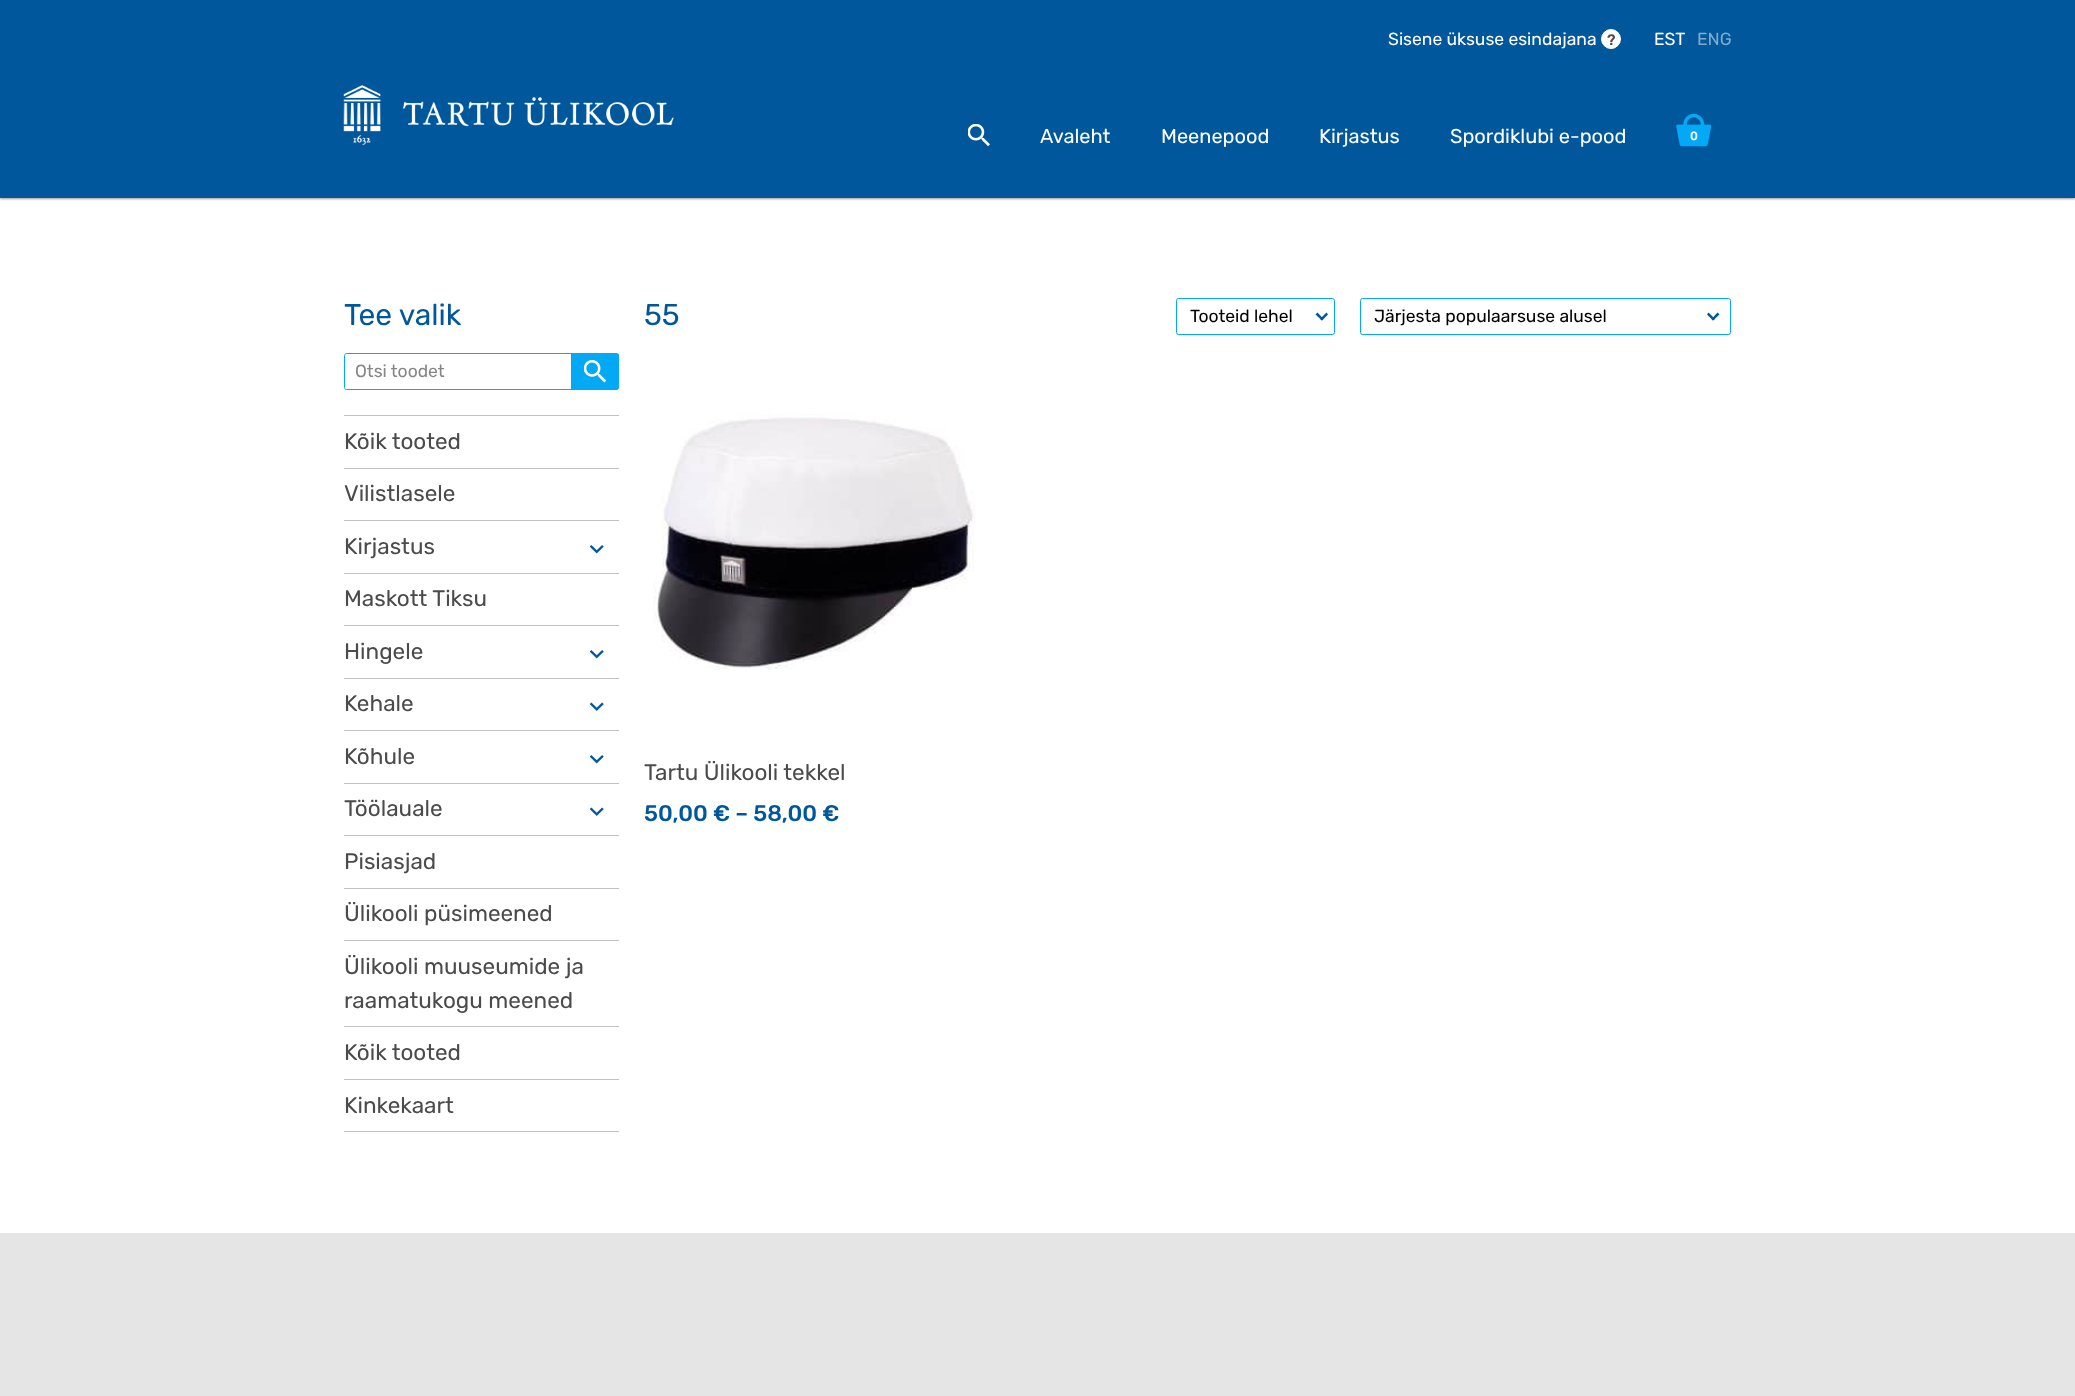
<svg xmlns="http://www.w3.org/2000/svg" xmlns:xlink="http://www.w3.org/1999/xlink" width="2075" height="1396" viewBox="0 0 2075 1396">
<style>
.cls-1{font:17.5px Rubik;fill:#ffffff}
.cls-2{font:500 15px Rubik;fill:#4b4b4b}
.cls-3{font:17.5px Rubik;fill:#80abcd}
.cls-4{font:20px Rubik;fill:#ffffff}
.cls-5{font:500 12px Rubik;fill:#ffffff}
.cls-6{font:30px Rubik;fill:#01579b}
.cls-7{font:17.5px Rubik;fill:#868686}
.cls-8{font:22.5px Rubik;fill:#4b4b4b}
.cls-9{font:17.5px Rubik;fill:#000000}
.cls-10{font:500 22.5px Rubik;fill:#01579b}
</style>
<rect width="100%" height="100%" fill="#ffffff"/>
<rect fill="#000000" fill-opacity="0.4" filter="blur(1px)" x="0" y="1" width="2075" height="198"/>
<rect fill="#01579b" x="0" y="0" width="2075" height="198"/>
<circle fill="#ffffff" stroke="#ffffff" cx="1611" cy="39" r="9.5"/>
<image xlink:href="image0.png" x="343" y="85" width="331" height="60"/>
<image xlink:href="image1.png" x="968" y="124" width="22" height="22"/>
<image xlink:href="image2.png" x="1676" y="113" width="35" height="34"/>
<path fill="none" stroke="#03a9f4" d="M346.5 353.5H610.5V389.5H346.5C345.5 389.5 344.5 388.5 344.5 387.5V355.5C344.5 354.5 345.5 353.5 346.5 353.5Z"/>
<path fill="#03a9f4" d="M571 353H616.5C618 353 619 354 619 355.5V387.5C619 389 618 390 616.5 390H571Z"/>
<image xlink:href="image3.png" x="584" y="360" width="22" height="23"/>
<rect fill="#c2c2c2" x="344" y="415" width="275" height="1"/>
<rect fill="#c2c2c2" x="344" y="468" width="275" height="1"/>
<rect fill="#c2c2c2" x="344" y="520" width="275" height="1"/>
<rect fill="#c2c2c2" x="344" y="573" width="275" height="1"/>
<image xlink:href="image4.png" x="590" y="545" width="14" height="9"/>
<rect fill="#c2c2c2" x="344" y="625" width="275" height="1"/>
<rect fill="#c2c2c2" x="344" y="678" width="275" height="1"/>
<image xlink:href="image4.png" x="590" y="650" width="14" height="9"/>
<rect fill="#c2c2c2" x="344" y="730" width="275" height="1"/>
<image xlink:href="image5.png" x="590" y="702" width="14" height="9"/>
<rect fill="#c2c2c2" x="344" y="783" width="275" height="1"/>
<image xlink:href="image4.png" x="590" y="755" width="14" height="9"/>
<rect fill="#c2c2c2" x="344" y="835" width="275" height="1"/>
<image xlink:href="image5.png" x="590" y="807" width="14" height="9"/>
<rect fill="#c2c2c2" x="344" y="888" width="275" height="1"/>
<rect fill="#c2c2c2" x="344" y="940" width="275" height="1"/>
<rect fill="#c2c2c2" x="344" y="1026" width="275" height="1"/>
<rect fill="#c2c2c2" x="344" y="1079" width="275" height="1"/>
<rect fill="#c2c2c2" x="344" y="1131" width="275" height="1"/>
<rect fill="none" stroke="#03a9f4" x="1176.5" y="298.5" width="158" height="36" rx="2"/>
<path fill="#01579b" d="M1328 314.5L1322 320.5L1320 319L1326.5 312.5Z"/>
<path fill="#01579b" d="M1323.5 319L1322 320.5L1315.5 314.5L1317.5 312.5Z"/>
<rect fill="none" stroke="#03a9f4" x="1360.5" y="298.5" width="370" height="36" rx="2"/>
<path fill="#01579b" d="M1719.5 314.5L1713 320.5L1711.5 319L1717.5 312.5Z"/>
<path fill="#01579b" d="M1715 319L1713 320.5L1707 314.5L1708.5 312.5Z"/>
<image xlink:href="image6.png" x="653" y="414" width="322" height="256"/>
<rect fill="#e5e5e5" x="0" y="1233" width="2075" height="163"/>
<text class="cls-1" x="1388" y="45">Sisene üksuse esindajana</text>
<text class="cls-2" x="1607" y="45">?</text>
<text class="cls-1" x="1654" y="45">EST</text>
<text class="cls-3" x="1697" y="45">ENG</text>
<text class="cls-4" x="1040" y="143">Avaleht</text>
<text class="cls-4" x="1161" y="143">Meenepood</text>
<text class="cls-4" x="1319" y="143">Kirjastus</text>
<text class="cls-4" x="1450" y="143">Spordiklubi e-pood</text>
<text class="cls-5" x="1690" y="140">0</text>
<text class="cls-6" x="344" y="325">Tee valik</text>
<text class="cls-7" x="355" y="377">Otsi toodet</text>
<text class="cls-8" x="344" y="449">Kõik tooted</text>
<text class="cls-8" x="344" y="501">Vilistlasele</text>
<text class="cls-8" x="344" y="554">Kirjastus</text>
<text class="cls-8" x="344" y="606">Maskott Tiksu</text>
<text class="cls-8" x="344" y="659">Hingele</text>
<text class="cls-8" x="344" y="711">Kehale</text>
<text class="cls-8" x="344" y="764">Kõhule</text>
<text class="cls-8" x="344" y="816">Töölauale</text>
<text class="cls-8" x="344" y="869">Pisiasjad</text>
<text class="cls-8" x="344" y="921">Ülikooli püsimeened</text>
<text class="cls-8"><tspan x="344" y="974">Ülikooli muuseumide ja</tspan><tspan x="344" y="1008">raamatukogu meened</tspan></text>
<text class="cls-8" x="344" y="1060">Kõik tooted</text>
<text class="cls-8" x="344" y="1113">Kinkekaart</text>
<text class="cls-6" x="644" y="325">55</text>
<text class="cls-9" x="1190" y="322">Tooteid lehel</text>
<text class="cls-9" x="1374" y="322">Järjesta populaarsuse alusel</text>
<text class="cls-8" x="644" y="780">Tartu Ülikooli tekkel</text>
<text class="cls-10" x="644" y="821">50,00 € – 58,00 €</text>
</svg>
